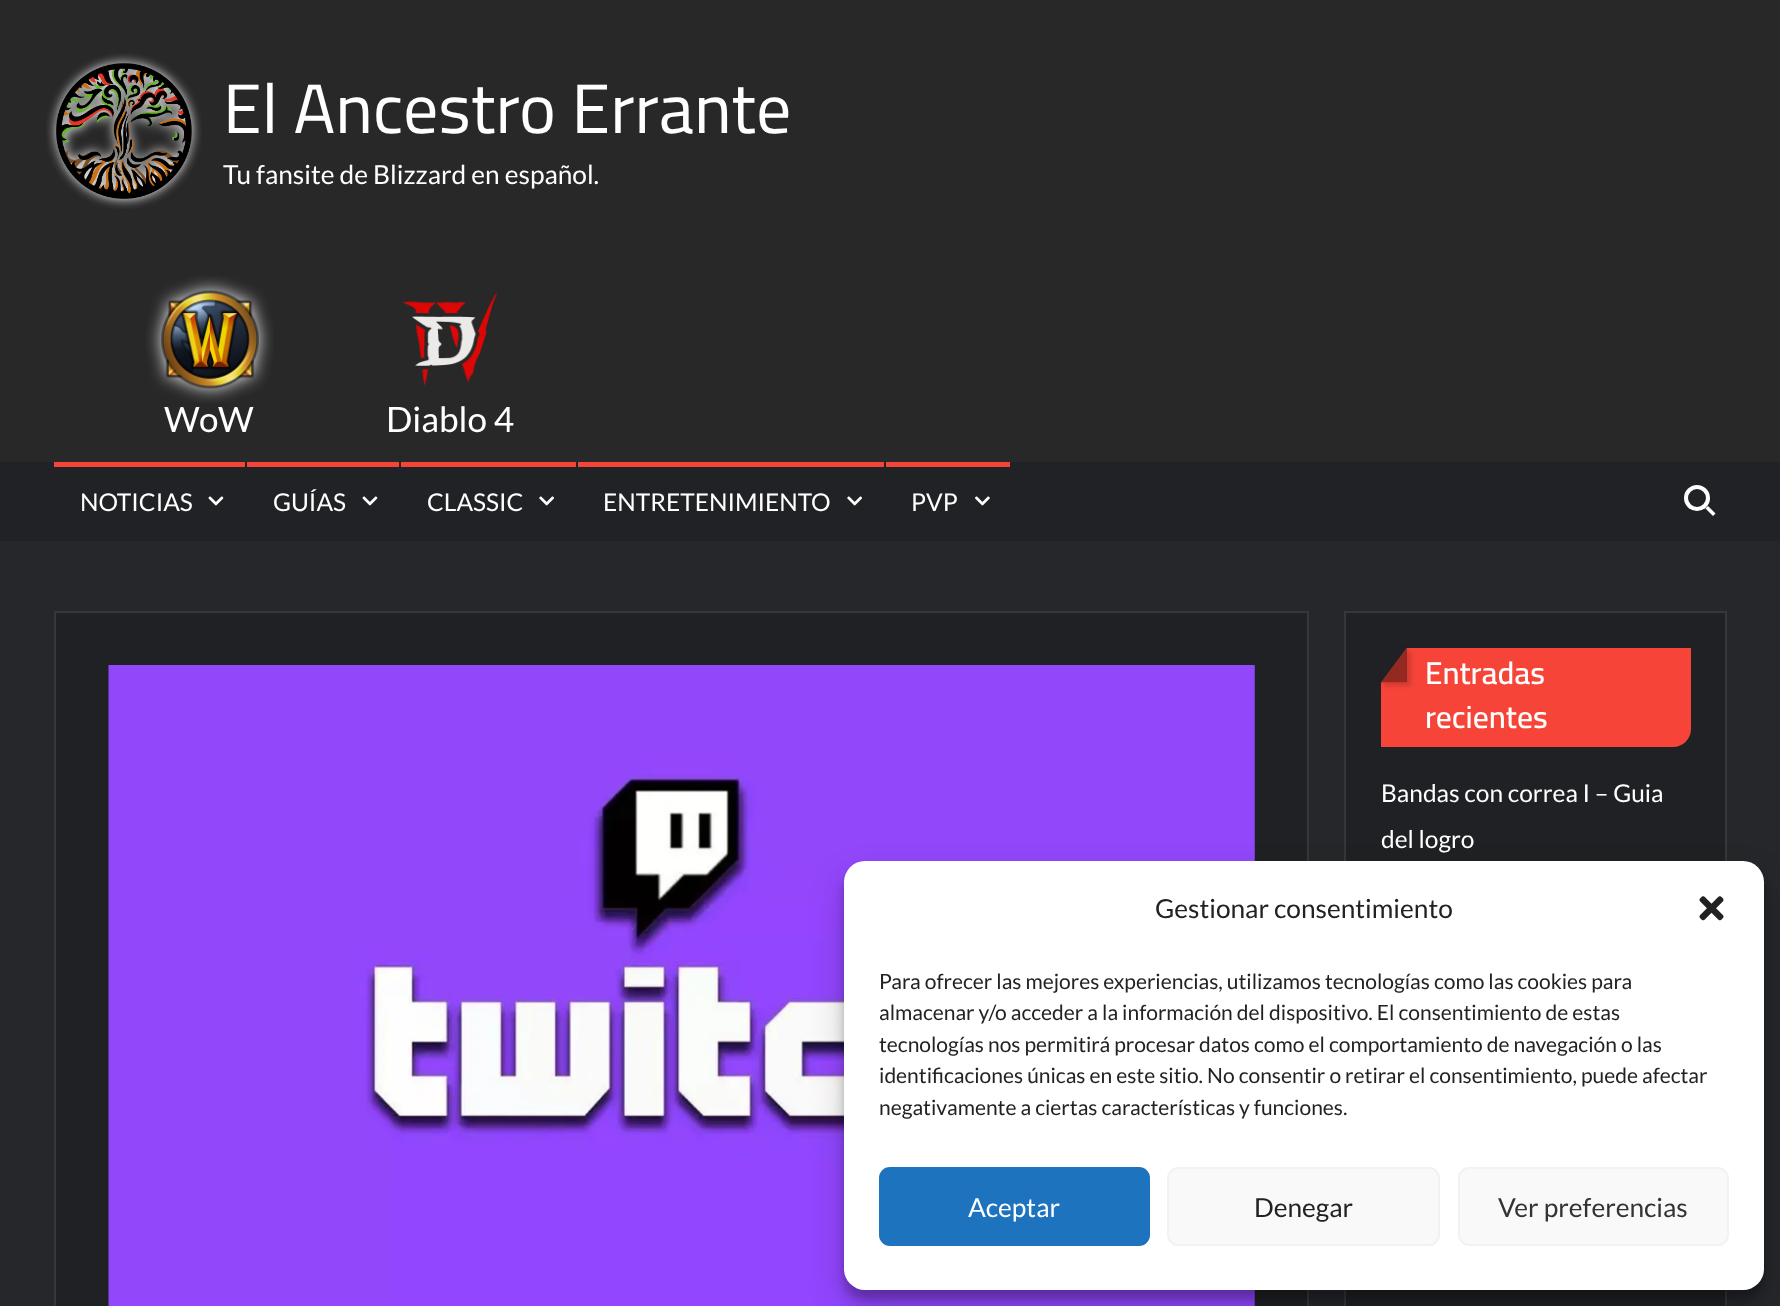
<svg xmlns="http://www.w3.org/2000/svg" xmlns:xlink="http://www.w3.org/1999/xlink" width="1780" height="1306" viewBox="0 0 1780 1306">
<style>
.cls-1{font:70px Cairo;fill:#ffffff}
.cls-2{font:26.25px Lato;fill:#ffffff}
.cls-3{font:35px Lato;fill:#ffffff}
.cls-4{font:24.5px Lato;fill:#ffffff}
.cls-5{font:600 31.5px Cairo;fill:#ffffff}
.cls-6{font:26.25px Lato;fill:#222222}
.cls-7{font:21px Lato;fill:#222222}
.cls-8{font:26.25px Lato;fill:#333333}
</style>
<defs>
<clipPath id="clip1"><path d="M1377 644H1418V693H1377ZM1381 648H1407V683H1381Z" clip-rule="evenodd"/></clipPath>
</defs>
<rect width="100%" height="100%" fill="#25272b"/>
<rect fill="#282828" x="0" y="0" width="1780" height="462"/>
<image xlink:href="image0.png" x="46" y="53" width="156" height="156"/>
<image xlink:href="image1.png" x="146" y="276" width="128" height="127"/>
<image xlink:href="image2.png" x="402" y="292" width="95" height="94"/>
<rect fill="#212226" x="0" y="462" width="1780" height="79"/>
<rect fill="#f64538" x="54" y="462" width="191" height="5"/>
<image xlink:href="image3.png" x="208" y="496" width="16" height="10"/>
<rect fill="#f64538" x="247" y="462" width="152" height="5"/>
<image xlink:href="image3.png" x="362" y="496" width="16" height="10"/>
<rect fill="#f64538" x="401" y="462" width="175" height="5"/>
<image xlink:href="image4.png" x="539" y="496" width="15" height="10"/>
<rect fill="#f64538" x="578" y="462" width="306" height="5"/>
<image xlink:href="image4.png" x="847" y="496" width="15" height="10"/>
<rect fill="#f64538" x="886" y="462" width="124" height="5"/>
<image xlink:href="image5.png" x="975" y="496" width="15" height="10"/>
<circle fill="none" stroke="#ffffff" stroke-width="4" cx="1697" cy="498" r="11"/>
<path fill="#ffffff" d="M1708 506L1715.5 513.5L1713 516L1705.5 508.5Z"/>
<rect fill="#202125" stroke="#36373b" stroke-width="2" x="55" y="612" width="1253" height="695"/>
<image xlink:href="image6.png" x="108" y="665" width="1147" height="641"/>
<rect fill="#202125" stroke="#36373b" stroke-width="2" x="1345" y="612" width="381" height="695"/>
<path fill="#f64538" d="M1381 648H1691V729C1691 739 1683 747 1673 747H1381Z"/>
<path fill="#202125" d="M1381 647.5H1407L1381 682.5Z"/>
<g clip-path="url(#clip1)">
<rect fill="#000000" fill-opacity="0.15" filter="blur(2px)" x="1384" y="651" width="27" height="35"/>
</g>
<path fill="#000000" fill-opacity="0.4" d="M1407 682.5H1381L1407 647.5Z"/>
<rect fill="#000000" fill-opacity="0.23" filter="blur(5px)" x="844" y="872" width="920" height="428" rx="21"/>
<rect fill="#000000" fill-opacity="0.19" filter="blur(17.5px)" x="844" y="879" width="920" height="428" rx="21"/>
<rect fill="#ffffff" x="844" y="861" width="920" height="429" rx="21"/>
<image xlink:href="image7.png" x="1699" y="896" width="25" height="25"/>
<rect fill="#1e73be" stroke="#1e73be" stroke-width="2" x="880" y="1168" width="269" height="77" rx="10"/>
<rect fill="#f9f9f9" stroke="#f2f2f2" stroke-width="2" x="1168" y="1168" width="271" height="77" rx="10"/>
<rect fill="#f9f9f9" stroke="#f2f2f2" stroke-width="2" x="1459" y="1168" width="269" height="77" rx="10"/>
<text class="cls-1" x="223" y="133">El Ancestro Errante</text>
<text class="cls-2" x="223" y="184">Tu fansite de Blizzard en español.</text>
<text class="cls-3" x="164" y="432">WoW</text>
<text class="cls-3" x="386" y="432">Diablo 4</text>
<text class="cls-4" x="80" y="511">NOTICIAS</text>
<text class="cls-4" x="273" y="511">GUÍAS</text>
<text class="cls-4" x="427" y="511">CLASSIC</text>
<text class="cls-4" x="603" y="511">ENTRETENIMIENTO</text>
<text class="cls-4" x="911" y="511">PVP</text>
<text class="cls-5"><tspan x="1425" y="684">Entradas</tspan><tspan x="1425" y="728">recientes</tspan></text>
<text class="cls-4"><tspan x="1381" y="802">Bandas con correa I – Guia</tspan><tspan x="1381" y="848">del logro</tspan></text>
<text class="cls-6" x="1155" y="918">Gestionar consentimiento</text>
<text class="cls-7"><tspan x="879" y="989">Para ofrecer las mejores experiencias, utilizamos tecnologías como las cookies para</tspan><tspan x="879" y="1020">almacenar y/o acceder a la información del dispositivo. El consentimiento de estas</tspan><tspan x="879" y="1052">tecnologías nos permitirá procesar datos como el comportamiento de navegación o las</tspan><tspan x="879" y="1083">identificaciones únicas en este sitio. No consentir o retirar el consentimiento, puede afectar</tspan><tspan x="879" y="1115">negativamente a ciertas características y funciones.</tspan></text>
<text class="cls-2" x="968" y="1217">Aceptar</text>
<text class="cls-6" x="1254" y="1217">Denegar</text>
<text class="cls-8" x="1498" y="1217">Ver preferencias</text>
</svg>
